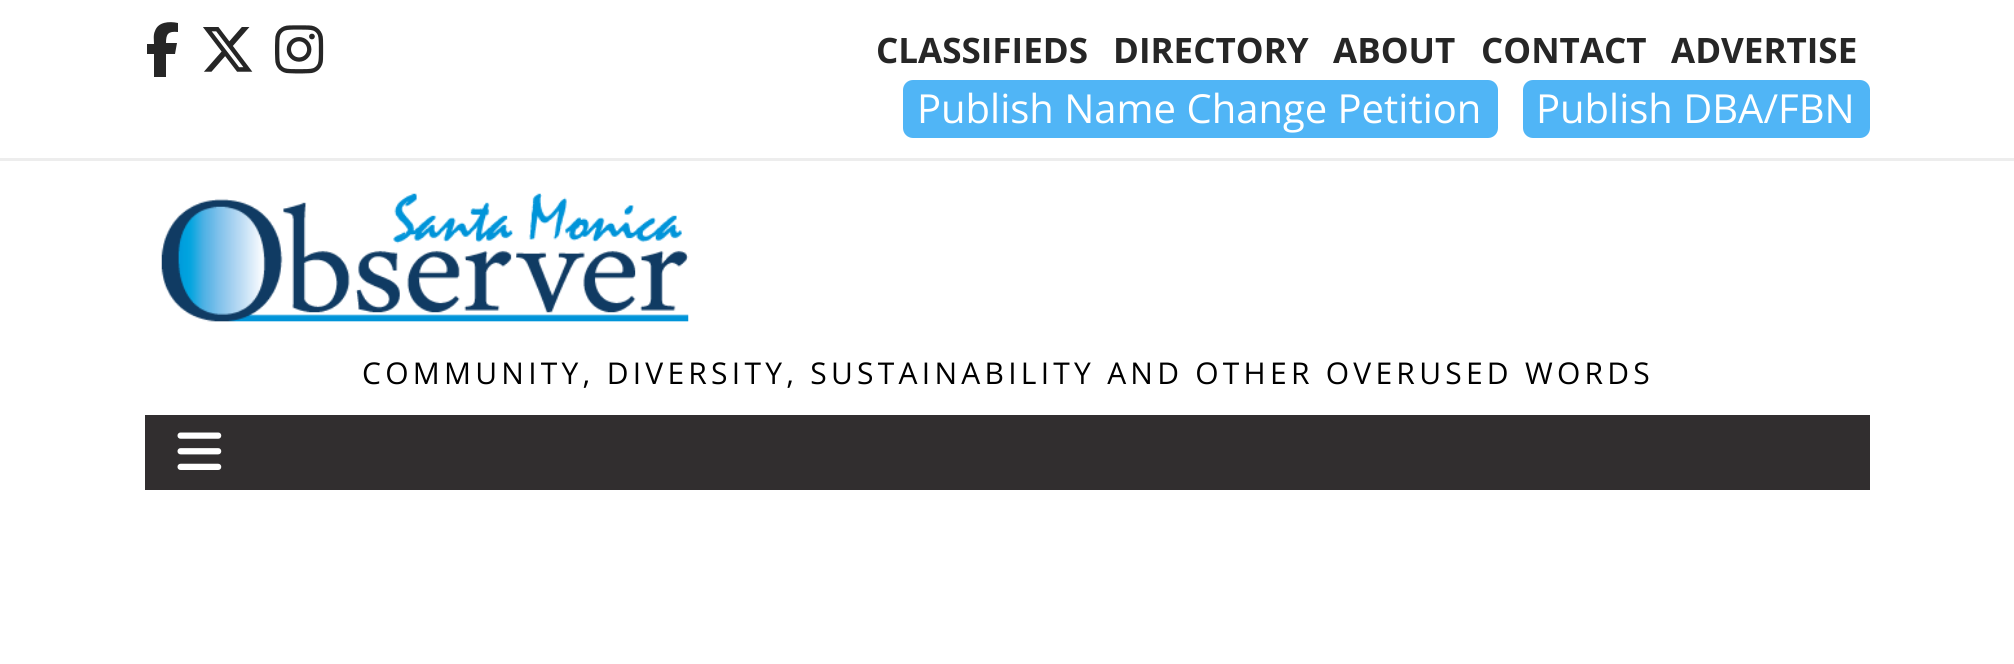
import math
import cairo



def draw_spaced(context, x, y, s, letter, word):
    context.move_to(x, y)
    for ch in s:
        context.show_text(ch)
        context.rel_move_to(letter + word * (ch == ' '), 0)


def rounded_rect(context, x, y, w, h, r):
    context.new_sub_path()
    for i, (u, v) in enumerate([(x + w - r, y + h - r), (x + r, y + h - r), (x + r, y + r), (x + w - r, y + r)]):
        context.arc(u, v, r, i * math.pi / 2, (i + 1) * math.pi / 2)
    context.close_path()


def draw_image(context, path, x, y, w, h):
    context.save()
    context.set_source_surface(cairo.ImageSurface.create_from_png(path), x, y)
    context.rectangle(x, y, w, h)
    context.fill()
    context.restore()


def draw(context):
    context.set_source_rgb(1, 1, 1)
    context.paint()
    context.set_source_rgb(237 / 255, 237 / 255, 237 / 255)
    context.rectangle(0, 158, 2014, 3)
    context.fill()
    context.set_source_rgb(38 / 255, 38 / 255, 38 / 255)
    context.new_path()
    context.move_to(154, 54)
    context.line_to(154, 77)
    context.line_to(154, 54)
    context.line_to(154, 77)
    context.line_to(166, 77)
    context.line_to(166, 54)
    context.line_to(175, 54)
    context.line_to(177, 43)
    context.line_to(166, 43)
    context.curve_to(166, 34, 168, 31, 178, 32)
    context.line_to(178, 23)
    context.curve_to(169, 21, 158, 22, 155, 31)
    context.curve_to(153, 35, 154, 40, 154, 44)
    context.line_to(147, 44)
    context.line_to(147, 54)
    context.close_path()
    context.fill()
    draw_image(context, "images/1.png", 203, 27, 50, 45)
    draw_image(context, "images/2.png", 275, 25, 49, 49)
    context.set_source_rgb(80 / 255, 181 / 255, 246 / 255)
    rounded_rect(context, 905.5, 82.5, 590, 53, 7.5)
    context.fill_preserve()
    context.set_line_width(5)
    context.stroke()
    rounded_rect(context, 1525.5, 82.5, 342, 53, 7.5)
    context.fill_preserve()
    context.stroke()
    draw_image(context, "images/3.png", 161, 193, 528, 129)
    context.set_source_rgb(49 / 255, 46 / 255, 47 / 255)
    context.rectangle(145, 415, 1725, 75)
    context.fill()
    draw_image(context, "images/4.png", 177, 432, 45, 38)
    context.select_font_face("Open Sans", cairo.FontSlant.NORMAL, cairo.FontWeight.BOLD)
    context.set_font_size(35)
    context.set_source_rgb(38 / 255, 38 / 255, 38 / 255)
    context.move_to(876, 63)
    context.show_text("CLASSIFIEDS")
    context.move_to(1113, 63)
    context.show_text("DIRECTORY")
    context.move_to(1333, 63)
    context.show_text("ABOUT")
    context.move_to(1481, 63)
    context.show_text("CONTACT")
    context.move_to(1671, 63)
    context.show_text("ADVERTISE")
    context.select_font_face("Open Sans")
    context.set_font_size(40)
    context.set_source_rgb(1, 1, 1)
    context.move_to(917, 123)
    context.show_text("Publish Name Change Petition")
    context.move_to(1536, 123)
    context.show_text("Publish DBA/FBN")
    context.set_font_size(30)
    context.set_source_rgb(0, 0, 0)
    draw_spaced(context, 362, 384, "COMMUNITY, DIVERSITY, SUSTAINABILITY AND OTHER OVERUSED WORDS", 4.25, 0)


surface = cairo.ImageSurface(cairo.Format.RGB24, 2014, 664)
context = cairo.Context(surface)
options = cairo.FontOptions()
options.set_hint_metrics(cairo.HintMetrics.OFF)
options.set_hint_style(cairo.HintStyle.NONE)
context.set_font_options(options)
context.set_miter_limit(4)
draw(context)
surface.write_to_png("out.png")
